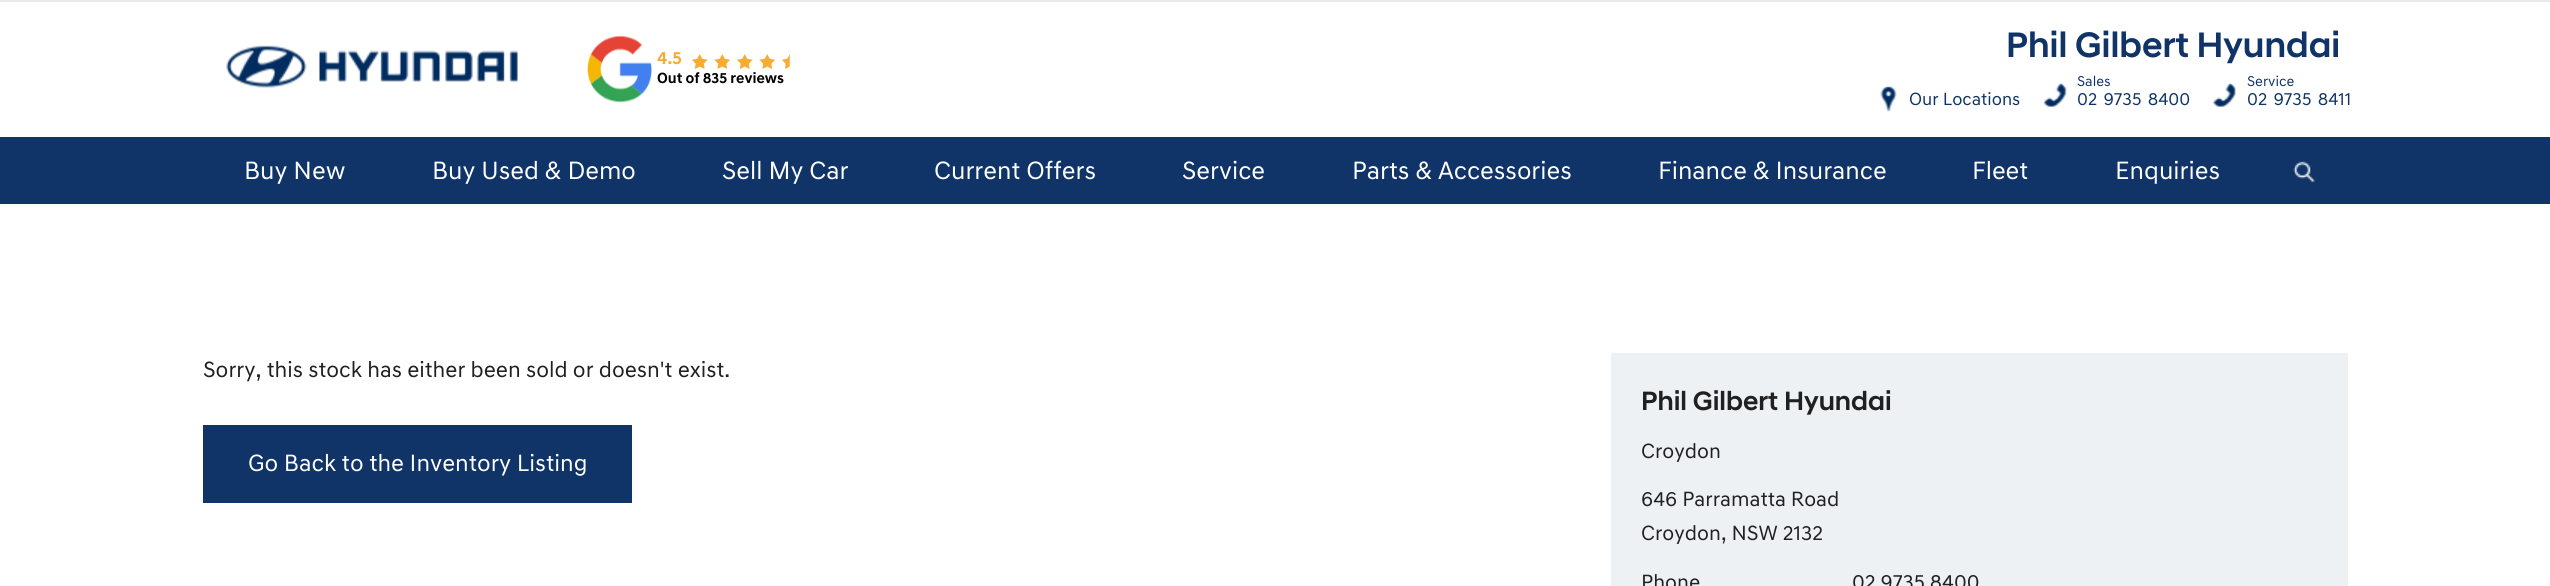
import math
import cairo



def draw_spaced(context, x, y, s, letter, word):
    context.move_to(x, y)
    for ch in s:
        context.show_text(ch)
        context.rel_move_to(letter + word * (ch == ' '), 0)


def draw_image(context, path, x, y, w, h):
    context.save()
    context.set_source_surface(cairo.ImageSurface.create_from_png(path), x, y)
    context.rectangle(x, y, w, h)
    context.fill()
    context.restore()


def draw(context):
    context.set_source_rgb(1, 1, 1)
    context.paint()
    context.set_source_rgb(233 / 255, 233 / 255, 233 / 255)
    context.rectangle(0, 0, 2550, 2)
    context.fill()
    draw_image(context, "images/1.png", 226, 45, 292, 43)
    draw_image(context, "images/2.png", 587, 35, 65, 68)
    draw_image(context, "images/3.png", 692, 54, 16, 15)
    draw_image(context, "images/4.png", 714, 54, 16, 15)
    draw_image(context, "images/3.png", 737, 54, 16, 15)
    draw_image(context, "images/4.png", 759, 54, 16, 15)
    draw_image(context, "images/5.png", 782, 54, 8, 15)
    draw_image(context, "images/6.png", 1880, 86, 17, 26)
    draw_image(context, "images/7.png", 2043, 83, 24, 24)
    draw_image(context, "images/8.png", 2213, 83, 23, 24)
    context.set_source_rgb(16 / 255, 52 / 255, 104 / 255)
    context.rectangle(0, 137, 2550, 67)
    context.fill()
    draw_image(context, "images/9.png", 2293, 161, 22, 22)
    context.rectangle(203, 425, 429, 78)
    context.fill()
    context.set_source_rgb(238 / 255, 241 / 255, 244 / 255)
    context.rectangle(1611, 353, 737, 233)
    context.fill()
    context.select_font_face("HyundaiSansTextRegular", cairo.FontSlant.NORMAL, cairo.FontWeight.BOLD)
    context.set_font_size(18)
    context.set_source_rgb(246 / 255, 172 / 255, 50 / 255)
    context.move_to(657, 64)
    context.show_text("4.5")
    context.set_font_size(15)
    context.set_source_rgb(0, 0, 0)
    context.move_to(657, 83)
    context.show_text("Out of 835 reviews")
    context.select_font_face("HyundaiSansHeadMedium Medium")
    context.set_font_size(36)
    context.set_source_rgb(16 / 255, 52 / 255, 104 / 255)
    context.move_to(2006, 57)
    context.show_text("Phil Gilbert Hyundai")
    context.select_font_face("HyundaiSansTextRegular")
    context.set_font_size(18)
    context.move_to(1909, 105)
    context.show_text("Our Locations")
    context.set_font_size(14.5)
    context.move_to(2077, 86)
    context.show_text("Sales")
    context.set_font_size(18)
    draw_spaced(context, 2077, 105, "02 9735 8400", 0, 2)
    context.set_font_size(14.5)
    context.move_to(2247, 86)
    context.show_text("Service")
    context.set_font_size(18)
    draw_spaced(context, 2247, 105, "02 9735 8411", 0, 2)
    context.set_font_size(25.5)
    context.set_source_rgb(1, 1, 1)
    context.move_to(244, 179)
    context.show_text("Buy New")
    context.move_to(432, 179)
    context.show_text("Buy Used & Demo")
    context.move_to(722, 179)
    context.show_text("Sell My Car")
    context.move_to(934, 179)
    context.show_text("Current Offers")
    context.move_to(1182, 179)
    context.show_text("Service")
    context.move_to(1352, 179)
    context.show_text("Parts & Accessories")
    context.move_to(1658, 179)
    context.show_text("Finance & Insurance")
    context.move_to(1972, 179)
    context.show_text("Fleet")
    context.move_to(2115, 179)
    context.show_text("Enquiries")
    context.set_font_size(22.5)
    context.set_source_rgb(32 / 255, 32 / 255, 32 / 255)
    context.move_to(203, 377)
    context.show_text("Sorry, this stock has either been sold or doesn't exist.")
    context.set_font_size(24)
    context.set_source_rgb(1, 1, 1)
    context.move_to(248, 471)
    context.show_text("Go Back to the Inventory Listing")
    context.select_font_face("HyundaiSansHeadMedium Medium")
    context.set_font_size(27)
    context.set_source_rgb(32 / 255, 32 / 255, 32 / 255)
    context.move_to(1641, 410)
    context.show_text("Phil Gilbert Hyundai")
    context.select_font_face("HyundaiSansTextRegular")
    context.set_font_size(21)
    context.move_to(1641, 458)
    context.show_text("Croydon")
    context.move_to(1641, 506)
    context.show_text("646 Parramatta Road")
    context.move_to(1641, 540)
    context.show_text("Croydon, NSW 2132")
    context.move_to(1641, 589)
    context.show_text("Phone")
    context.move_to(1852, 589)
    context.show_text("02 9735 8400")


surface = cairo.ImageSurface(cairo.Format.RGB24, 2550, 586)
context = cairo.Context(surface)
options = cairo.FontOptions()
options.set_hint_metrics(cairo.HintMetrics.OFF)
options.set_hint_style(cairo.HintStyle.NONE)
context.set_font_options(options)
context.set_miter_limit(4)
draw(context)
surface.write_to_png("out.png")
